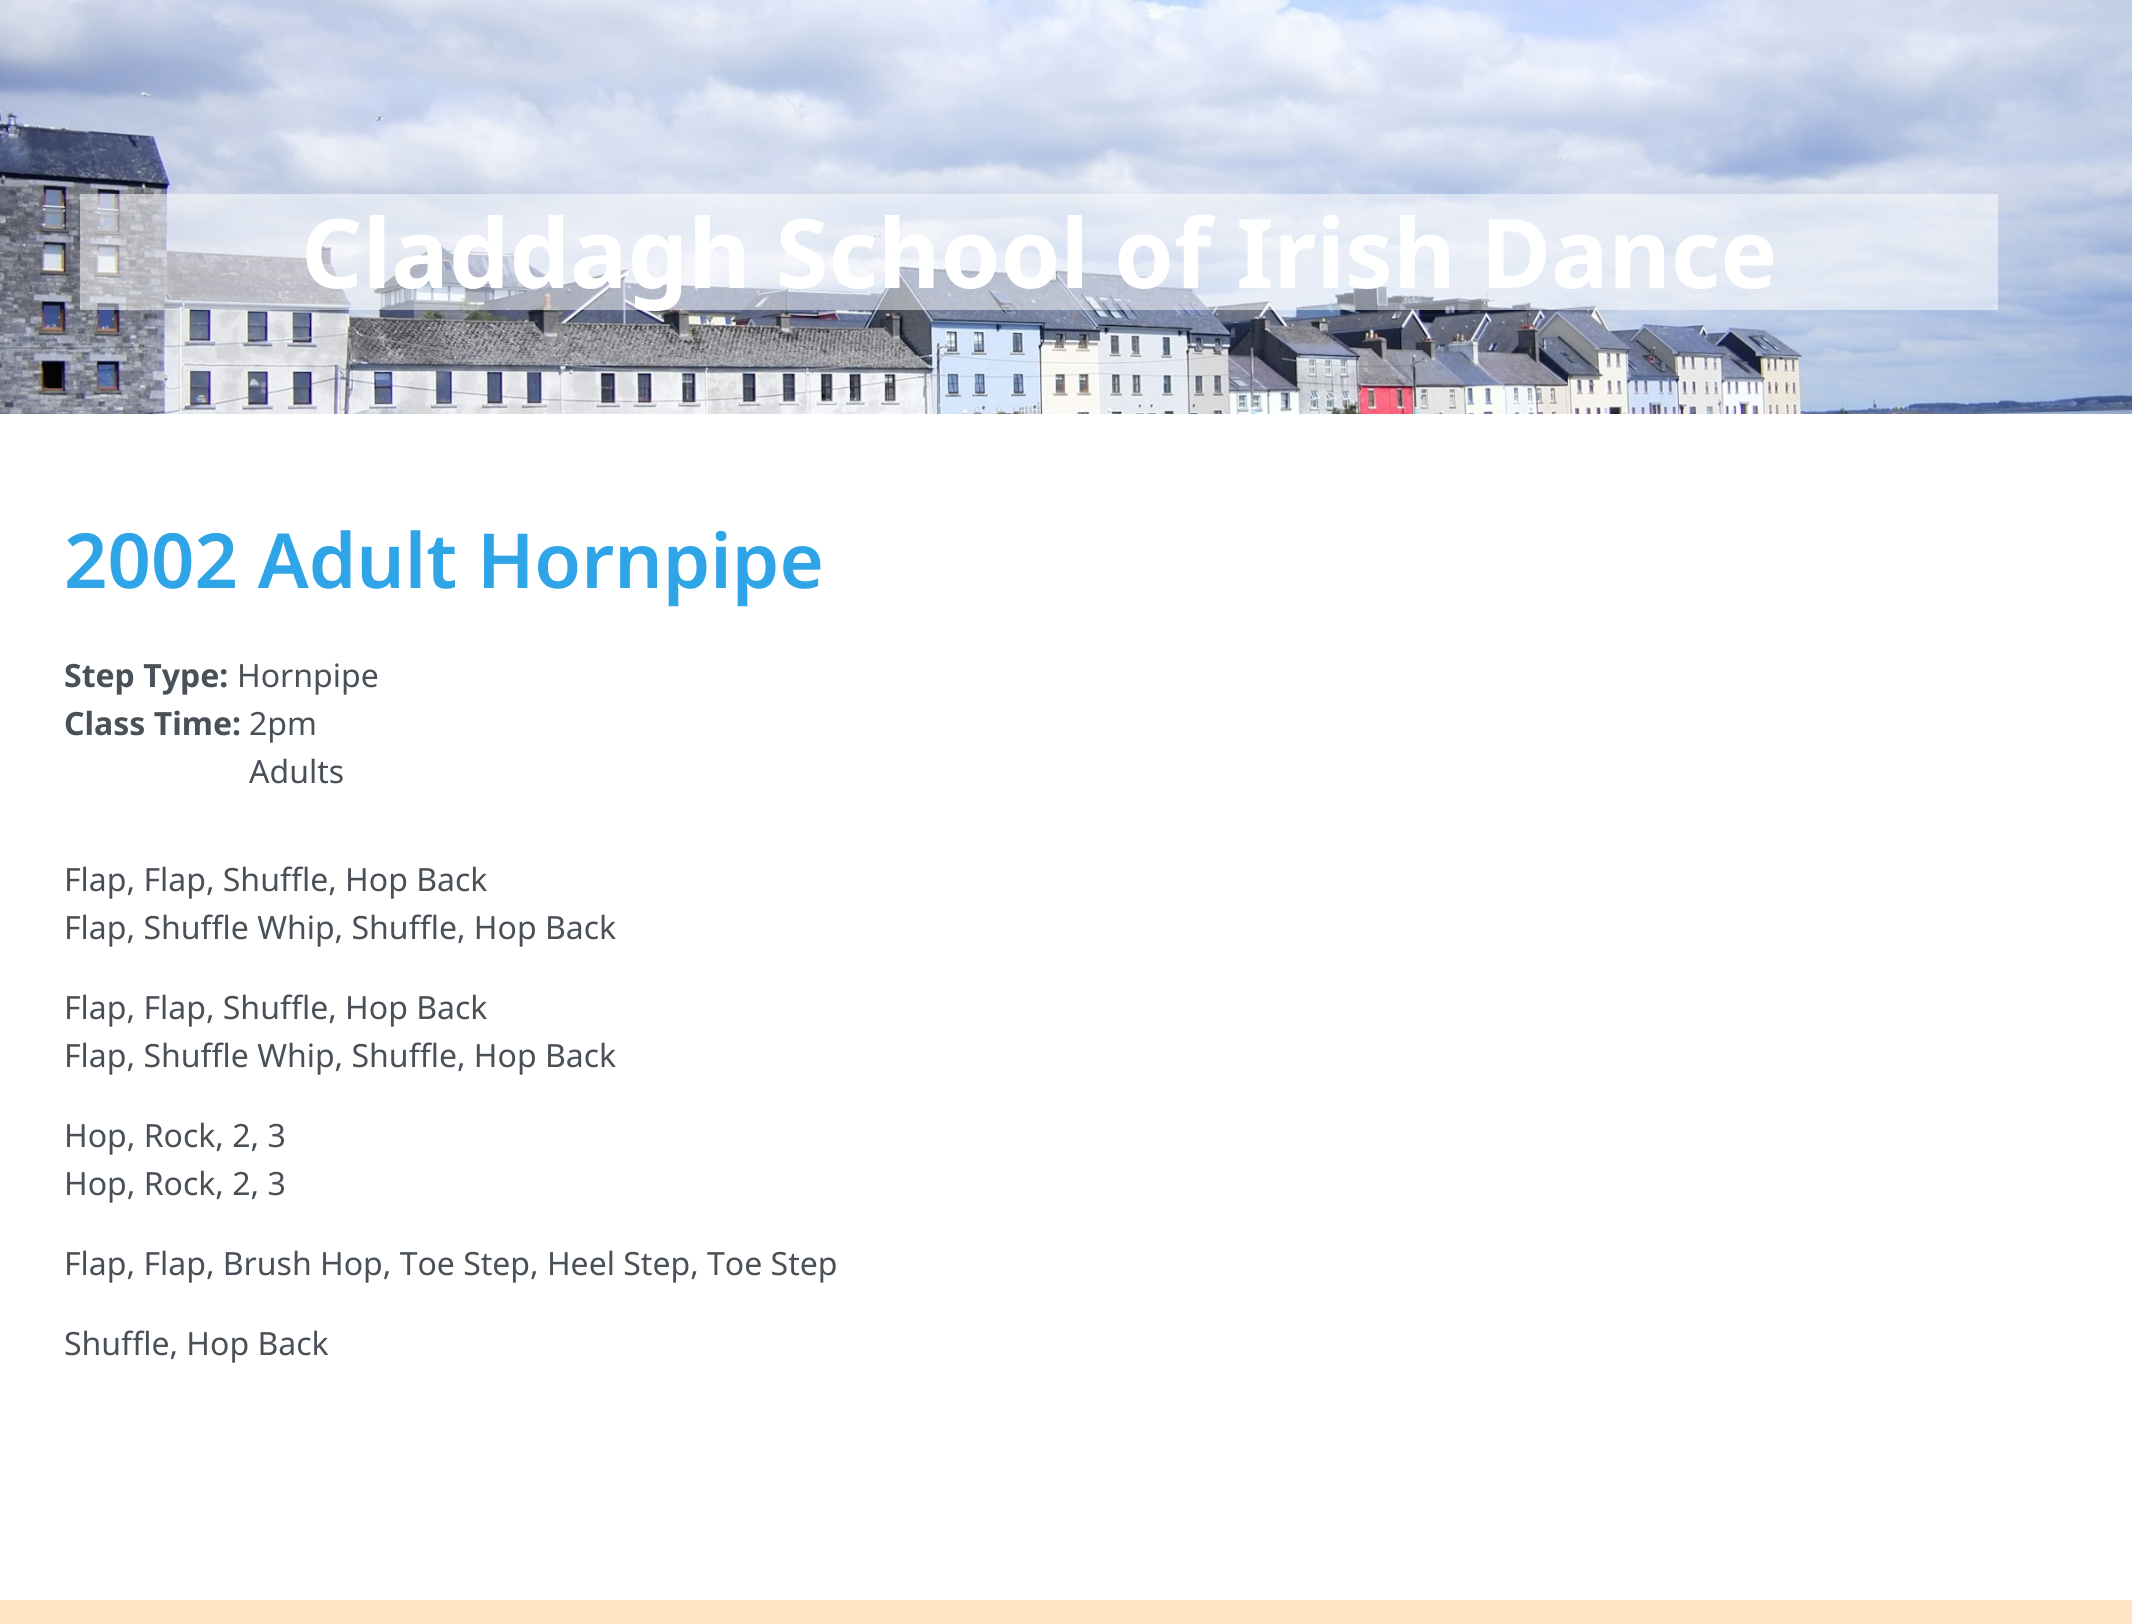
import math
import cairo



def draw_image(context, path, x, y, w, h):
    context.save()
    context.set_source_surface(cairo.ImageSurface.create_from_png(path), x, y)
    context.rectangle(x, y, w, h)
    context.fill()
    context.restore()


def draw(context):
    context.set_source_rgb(1, 1, 1)
    context.paint()
    draw_image(context, "images/1.png", 0, 0, 2132, 414)
    context.set_source_rgba(1, 1, 1, 0.5)
    context.rectangle(80, 194, 1918, 116)
    context.fill()
    context.set_source_rgb(1, 228 / 255, 196 / 255)
    context.rectangle(0, 1600, 2132, 24)
    context.fill()
    context.select_font_face("Noto Sans", cairo.FontSlant.NORMAL, cairo.FontWeight.BOLD)
    context.set_font_size(96)
    context.set_source_rgb(1, 1, 1)
    context.move_to(301, 288)
    context.show_text("Claddagh School of Irish Dance")
    context.select_font_face("Noto Sans SemiBold")
    context.set_font_size(76)
    context.set_source_rgb(47 / 255, 164 / 255, 231 / 255)
    context.move_to(64, 588)
    context.show_text("2002 Adult Hornpipe")
    context.select_font_face("Noto Sans", cairo.FontSlant.NORMAL, cairo.FontWeight.BOLD)
    context.set_font_size(32)
    context.set_source_rgb(73 / 255, 80 / 255, 87 / 255)
    context.move_to(64, 687)
    context.show_text("Step Type:")
    context.select_font_face("Noto Sans")
    context.move_to(237, 687)
    context.show_text("Hornpipe")
    context.select_font_face("Noto Sans", cairo.FontSlant.NORMAL, cairo.FontWeight.BOLD)
    context.move_to(64, 735)
    context.show_text("Class Time:")
    context.select_font_face("Noto Sans")
    context.move_to(249, 735)
    context.show_text("2pm")
    context.move_to(249, 783)
    context.show_text("Adults")
    context.move_to(64, 891)
    context.show_text("Flap, Flap, Shuffle, Hop Back")
    context.move_to(64, 939)
    context.show_text("Flap, Shuffle Whip, Shuffle, Hop Back")
    context.move_to(64, 1019)
    context.show_text("Flap, Flap, Shuffle, Hop Back")
    context.move_to(64, 1067)
    context.show_text("Flap, Shuffle Whip, Shuffle, Hop Back")
    context.move_to(64, 1147)
    context.show_text("Hop, Rock, 2, 3")
    context.move_to(64, 1195)
    context.show_text("Hop, Rock, 2, 3")
    context.move_to(64, 1275)
    context.show_text("Flap, Flap, Brush Hop, Toe Step, Heel Step, Toe Step")
    context.move_to(64, 1355)
    context.show_text("Shuffle, Hop Back")


surface = cairo.ImageSurface(cairo.Format.RGB24, 2132, 1624)
context = cairo.Context(surface)
options = cairo.FontOptions()
options.set_hint_metrics(cairo.HintMetrics.OFF)
options.set_hint_style(cairo.HintStyle.NONE)
context.set_font_options(options)
context.set_miter_limit(4)
draw(context)
surface.write_to_png("out.png")
